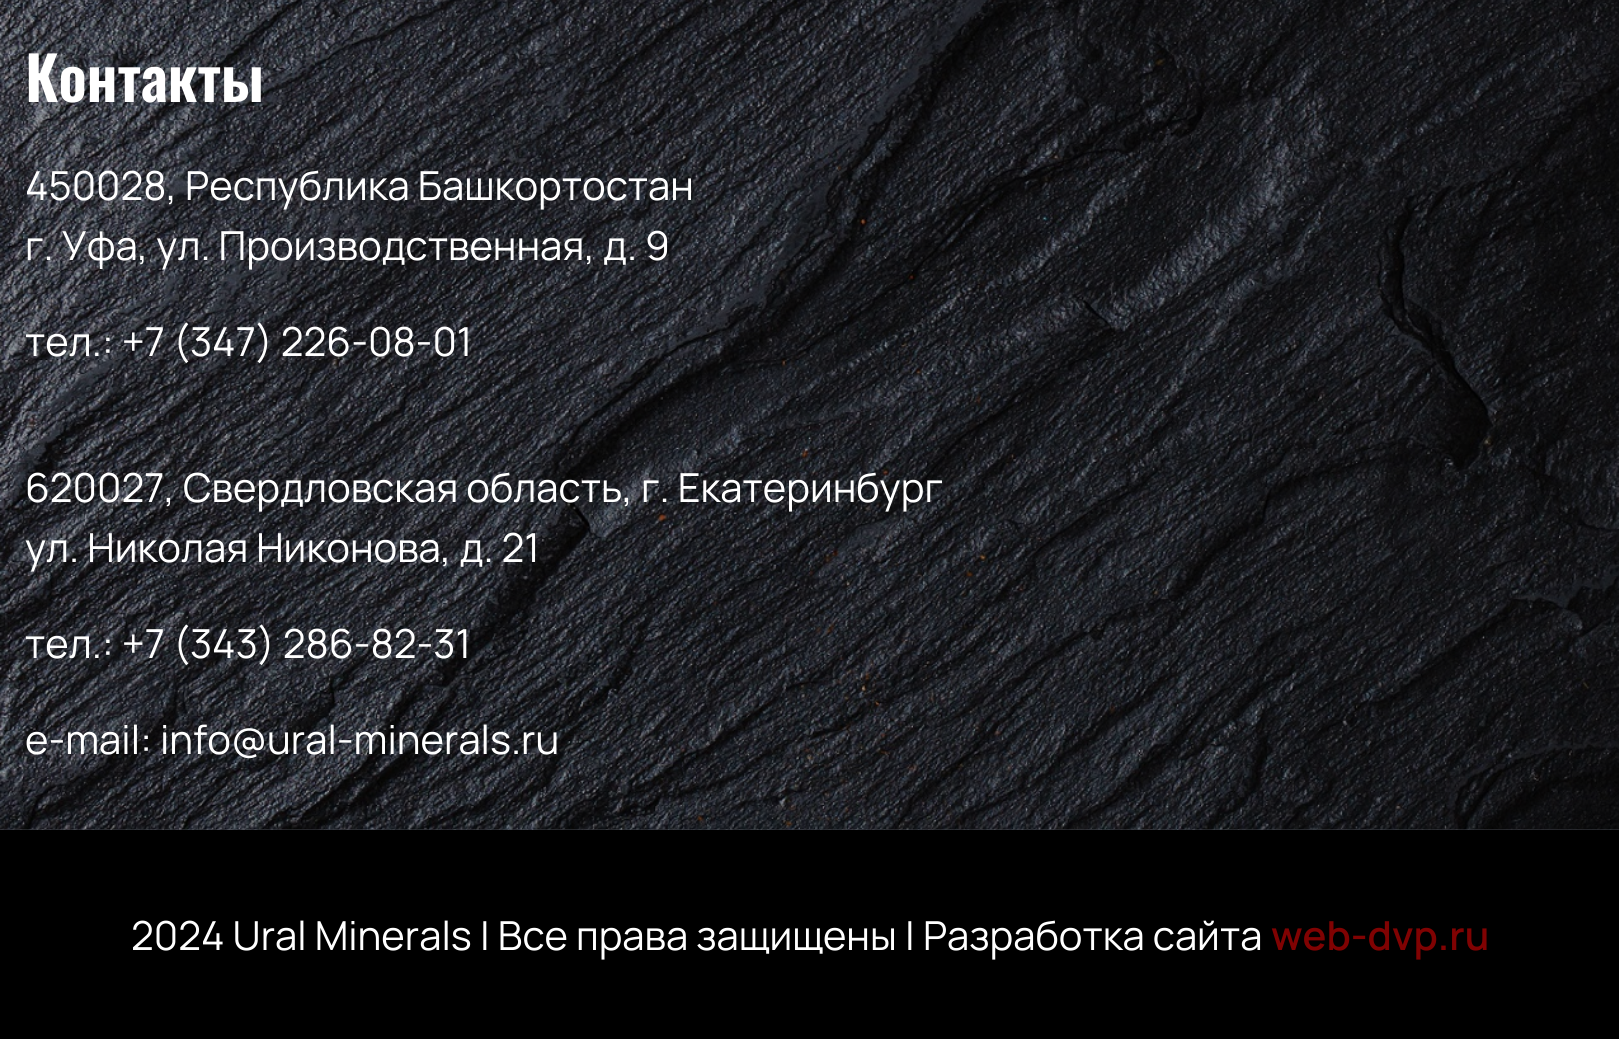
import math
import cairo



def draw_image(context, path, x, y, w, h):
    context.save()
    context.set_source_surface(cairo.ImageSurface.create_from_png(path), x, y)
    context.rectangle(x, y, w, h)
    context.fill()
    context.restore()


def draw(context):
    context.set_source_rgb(62 / 255, 65 / 255, 73 / 255)
    context.paint()
    draw_image(context, "images/1.png", 0, 0, 1619, 830)
    context.set_source_rgb(0, 0, 0)
    context.rectangle(0, 830, 1619, 209)
    context.fill()
    context.select_font_face("Oswald SemiBold")
    context.set_font_size(60)
    context.set_source_rgb(1, 1, 1)
    context.move_to(25, 102)
    context.show_text("Контакты")
    context.select_font_face("Manrope")
    context.set_font_size(40)
    context.move_to(25, 200)
    context.show_text("450028, Республика Башкортостан")
    context.move_to(25, 260)
    context.show_text("г. Уфа, ул. Производственная, д. 9")
    context.move_to(25, 356)
    context.show_text("тел.: +7 (347) 226-08-01")
    context.move_to(25, 502)
    context.show_text("620027, Свердловская область, г. Екатеринбург")
    context.move_to(25, 562)
    context.show_text("ул. Николая Никонова, д. 21")
    context.move_to(25, 658)
    context.show_text("тел.: +7 (343) 286-82-31")
    context.move_to(25, 754)
    context.show_text("e-mail: info@ural-minerals.ru")
    context.move_to(131, 950)
    context.show_text("2024 Ural Minerals | Все права защищены | Разработка сайта")
    context.select_font_face("Manrope SemiBold")
    context.set_source_rgb(128 / 255, 2 / 255, 2 / 255)
    context.move_to(1271, 950)
    context.show_text("web-dvp.ru")


surface = cairo.ImageSurface(cairo.Format.RGB24, 1619, 1039)
context = cairo.Context(surface)
options = cairo.FontOptions()
options.set_hint_metrics(cairo.HintMetrics.OFF)
options.set_hint_style(cairo.HintStyle.NONE)
context.set_font_options(options)
context.set_miter_limit(4)
draw(context)
surface.write_to_png("out.png")
